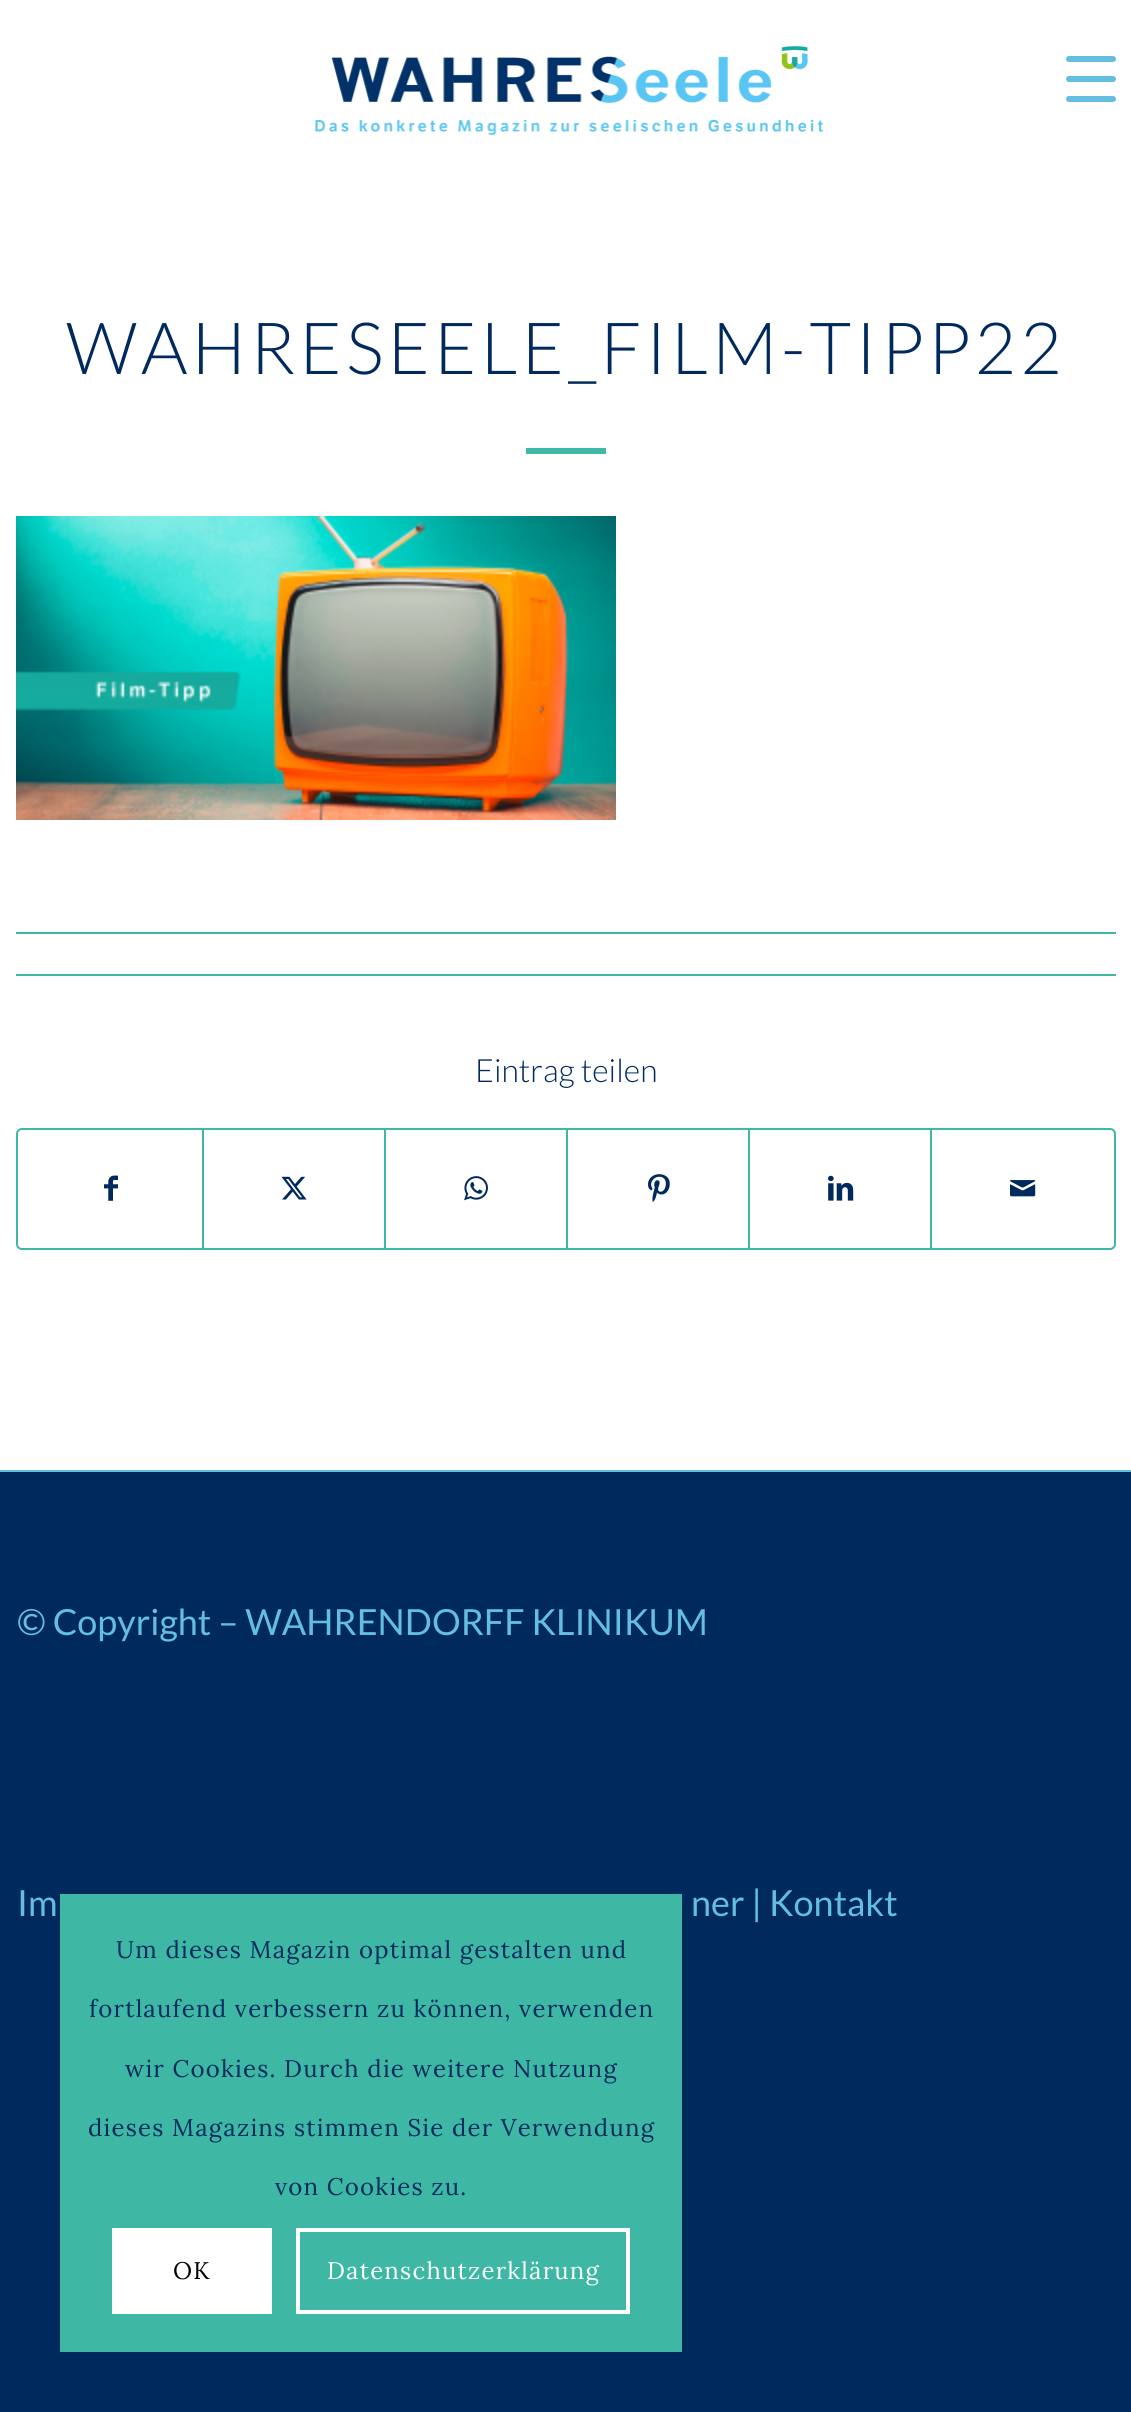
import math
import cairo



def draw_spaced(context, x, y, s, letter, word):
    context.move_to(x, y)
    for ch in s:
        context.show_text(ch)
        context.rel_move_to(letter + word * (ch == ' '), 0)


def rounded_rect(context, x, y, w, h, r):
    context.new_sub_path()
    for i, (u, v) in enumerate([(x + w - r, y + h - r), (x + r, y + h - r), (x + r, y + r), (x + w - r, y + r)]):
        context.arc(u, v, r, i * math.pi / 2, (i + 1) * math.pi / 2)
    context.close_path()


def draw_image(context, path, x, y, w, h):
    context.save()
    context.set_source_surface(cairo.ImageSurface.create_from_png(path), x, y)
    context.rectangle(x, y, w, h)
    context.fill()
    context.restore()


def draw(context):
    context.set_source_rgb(0, 41 / 255, 94 / 255)
    context.paint()
    context.set_source_rgb(1, 1, 1)
    context.rectangle(0, 0, 1131, 1470)
    context.fill()
    draw_image(context, "images/1.png", 315, 46, 508, 89)
    context.set_source_rgb(100 / 255, 190 / 255, 226 / 255)
    rounded_rect(context, 1066, 76, 50, 6, 3)
    context.fill()
    rounded_rect(context, 1066, 56, 50, 6, 3)
    context.fill()
    rounded_rect(context, 1066, 96, 50, 6, 3)
    context.fill()
    context.set_source_rgb(62 / 255, 184 / 255, 164 / 255)
    context.rectangle(526, 448, 80, 6)
    context.fill()
    draw_image(context, "images/2.png", 16, 516, 600, 304)
    context.rectangle(16, 932, 1100, 2)
    context.fill()
    context.rectangle(16, 974, 1100, 2)
    context.fill()
    rounded_rect(context, 17, 1129, 1098, 120, 5)
    context.stroke()
    draw_image(context, "images/3.png", 104, 1175, 14, 26)
    context.rectangle(202, 1130, 2, 118)
    context.fill()
    draw_image(context, "images/4.png", 281, 1176, 26, 24)
    context.rectangle(384, 1130, 2, 118)
    context.fill()
    draw_image(context, "images/5.png", 464, 1176, 24, 25)
    context.rectangle(566, 1130, 2, 118)
    context.fill()
    draw_image(context, "images/6.png", 648, 1174, 22, 29)
    context.rectangle(748, 1130, 2, 118)
    context.fill()
    draw_image(context, "images/7.png", 828, 1175, 26, 26)
    context.rectangle(930, 1130, 2, 118)
    context.fill()
    draw_image(context, "images/8.png", 1010, 1180, 26, 17)
    context.set_source_rgb(100 / 255, 190 / 255, 226 / 255)
    context.rectangle(0, 1470, 1131, 2)
    context.fill()
    context.set_source_rgb(62 / 255, 184 / 255, 164 / 255)
    context.rectangle(60, 1894, 622, 458)
    context.fill()
    context.set_source_rgb(1, 1, 1)
    context.rectangle(112, 2228, 160, 86)
    context.fill()
    context.rectangle(298, 2230, 330, 82)
    context.set_line_width(4)
    context.stroke()
    context.select_font_face("Lato Light")
    context.set_font_size(72)
    context.set_source_rgb(0, 41 / 255, 94 / 255)
    draw_spaced(context, 66, 374, "WAHRESEELE_FILM-TIPP22", 4, 0)
    context.set_font_size(32)
    context.move_to(475, 1082)
    context.show_text("Eintrag teilen")
    context.select_font_face("Lato")
    context.set_font_size(36)
    context.set_source_rgb(100 / 255, 190 / 255, 226 / 255)
    context.move_to(17, 1635)
    context.show_text("© Copyright – WAHRENDORFF KLINIKUM")
    context.move_to(17, 1916)
    context.show_text("Im")
    context.move_to(691, 1916)
    context.show_text("ner | Kontakt")
    context.select_font_face("Lora")
    context.set_font_size(24)
    context.set_source_rgb(0, 41 / 255, 94 / 255)
    draw_spaced(context, 116, 1958, "Um dieses Magazin optimal gestalten und", 1.2, 0)
    draw_spaced(context, 89, 2017, "fortlaufend verbessern zu können, verwenden", 1.2, 0)
    draw_spaced(context, 125, 2077, "wir Cookies. Durch die weitere Nutzung", 1.2, 0)
    draw_spaced(context, 88, 2136, "dieses Magazins stimmen Sie der Verwendung", 1.2, 0)
    draw_spaced(context, 275, 2195, "von Cookies zu.", 1.2, 0)
    context.set_source_rgb(0, 0, 0)
    draw_spaced(context, 173, 2279, "OK", 1.2, 0)
    context.set_source_rgb(1, 1, 1)
    draw_spaced(context, 327, 2279, "Datenschutzerklärung", 1.2, 0)


surface = cairo.ImageSurface(cairo.Format.RGB24, 1131, 2412)
context = cairo.Context(surface)
options = cairo.FontOptions()
options.set_hint_metrics(cairo.HintMetrics.OFF)
options.set_hint_style(cairo.HintStyle.NONE)
context.set_font_options(options)
context.set_miter_limit(4)
draw(context)
surface.write_to_png("out.png")
